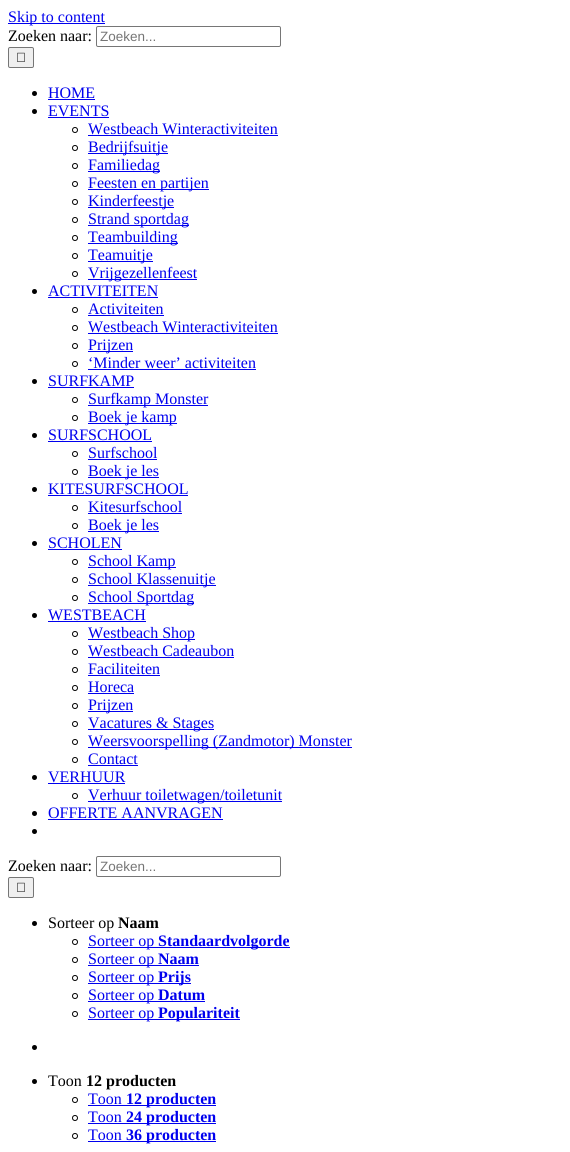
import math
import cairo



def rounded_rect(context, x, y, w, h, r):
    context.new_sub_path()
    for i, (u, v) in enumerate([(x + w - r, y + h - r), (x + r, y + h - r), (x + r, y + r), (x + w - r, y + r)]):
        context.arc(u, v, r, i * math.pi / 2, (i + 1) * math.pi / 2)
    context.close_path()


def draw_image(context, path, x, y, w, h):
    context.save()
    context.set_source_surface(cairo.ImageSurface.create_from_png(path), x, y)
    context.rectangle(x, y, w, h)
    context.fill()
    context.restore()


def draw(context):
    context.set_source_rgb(1, 1, 1)
    context.paint()
    context.set_source_rgb(0, 0, 238 / 255)
    context.rectangle(8, 23, 97, 1)
    context.fill()
    rounded_rect(context, 96.5, 26.5, 184, 20, 1.5)
    context.set_source_rgb(118 / 255, 118 / 255, 118 / 255)
    context.set_line_width(1)
    context.stroke()
    context.set_source_rgb(239 / 255, 239 / 255, 239 / 255)
    rounded_rect(context, 8.5, 47.5, 25, 20, 1.5)
    context.fill_preserve()
    context.set_source_rgb(118 / 255, 118 / 255, 118 / 255)
    context.stroke()
    draw_image(context, "images/1.png", 17, 52, 8, 10)
    context.set_source_rgb(0, 0, 0)
    context.arc(34.5, 93.5, 2.5, 0, 2 * math.pi)
    context.fill()
    context.set_source_rgb(0, 0, 238 / 255)
    context.rectangle(48, 99, 47, 1)
    context.fill()
    context.set_source_rgb(0, 0, 0)
    context.arc(34.5, 111.5, 2.5, 0, 2 * math.pi)
    context.fill()
    context.set_source_rgb(0, 0, 238 / 255)
    context.rectangle(48, 117, 61, 1)
    context.fill()
    context.arc(75, 130, 2.5, 0, 2 * math.pi)
    context.set_source_rgb(0, 0, 0)
    context.stroke()
    context.set_source_rgb(0, 0, 238 / 255)
    context.rectangle(88, 135, 190, 1)
    context.fill()
    context.arc(75, 148, 2.5, 0, 2 * math.pi)
    context.set_source_rgb(0, 0, 0)
    context.stroke()
    context.set_source_rgb(0, 0, 238 / 255)
    context.rectangle(88, 153, 80, 1)
    context.fill()
    context.arc(75, 166, 2.5, 0, 2 * math.pi)
    context.set_source_rgb(0, 0, 0)
    context.stroke()
    context.set_source_rgb(0, 0, 238 / 255)
    context.rectangle(88, 171, 72, 1)
    context.fill()
    context.arc(75, 184, 2.5, 0, 2 * math.pi)
    context.set_source_rgb(0, 0, 0)
    context.stroke()
    context.set_source_rgb(0, 0, 238 / 255)
    context.rectangle(88, 189, 121, 1)
    context.fill()
    context.arc(75, 202, 2.5, 0, 2 * math.pi)
    context.set_source_rgb(0, 0, 0)
    context.stroke()
    context.set_source_rgb(0, 0, 238 / 255)
    context.rectangle(88, 207, 86, 1)
    context.fill()
    context.arc(75, 220, 2.5, 0, 2 * math.pi)
    context.set_source_rgb(0, 0, 0)
    context.stroke()
    context.set_source_rgb(0, 0, 238 / 255)
    context.rectangle(88, 225, 101, 1)
    context.fill()
    context.arc(75, 238, 2.5, 0, 2 * math.pi)
    context.set_source_rgb(0, 0, 0)
    context.stroke()
    context.set_source_rgb(0, 0, 238 / 255)
    context.rectangle(88, 243, 90, 1)
    context.fill()
    context.arc(75, 256, 2.5, 0, 2 * math.pi)
    context.set_source_rgb(0, 0, 0)
    context.stroke()
    context.set_source_rgb(0, 0, 238 / 255)
    context.rectangle(88, 261, 65, 1)
    context.fill()
    context.arc(75, 274, 2.5, 0, 2 * math.pi)
    context.set_source_rgb(0, 0, 0)
    context.stroke()
    context.set_source_rgb(0, 0, 238 / 255)
    context.rectangle(88, 279, 109, 1)
    context.fill()
    context.set_source_rgb(0, 0, 0)
    context.arc(34.5, 291.5, 2.5, 0, 2 * math.pi)
    context.fill()
    context.set_source_rgb(0, 0, 238 / 255)
    context.rectangle(48, 297, 110, 1)
    context.fill()
    context.arc(75, 310, 2.5, 0, 2 * math.pi)
    context.set_source_rgb(0, 0, 0)
    context.stroke()
    context.set_source_rgb(0, 0, 238 / 255)
    context.rectangle(88, 315, 76, 1)
    context.fill()
    context.arc(75, 328, 2.5, 0, 2 * math.pi)
    context.set_source_rgb(0, 0, 0)
    context.stroke()
    context.set_source_rgb(0, 0, 238 / 255)
    context.rectangle(88, 333, 190, 1)
    context.fill()
    context.arc(75, 346, 2.5, 0, 2 * math.pi)
    context.set_source_rgb(0, 0, 0)
    context.stroke()
    context.set_source_rgb(0, 0, 238 / 255)
    context.rectangle(88, 351, 45, 1)
    context.fill()
    context.arc(75, 364, 2.5, 0, 2 * math.pi)
    context.set_source_rgb(0, 0, 0)
    context.stroke()
    context.set_source_rgb(0, 0, 238 / 255)
    context.rectangle(88, 369, 168, 1)
    context.fill()
    context.set_source_rgb(0, 0, 0)
    context.arc(34.5, 381.5, 2.5, 0, 2 * math.pi)
    context.fill()
    context.set_source_rgb(0, 0, 238 / 255)
    context.rectangle(48, 387, 86, 1)
    context.fill()
    context.arc(75, 400, 2.5, 0, 2 * math.pi)
    context.set_source_rgb(0, 0, 0)
    context.stroke()
    context.set_source_rgb(0, 0, 238 / 255)
    context.rectangle(88, 405, 120, 1)
    context.fill()
    context.arc(75, 418, 2.5, 0, 2 * math.pi)
    context.set_source_rgb(0, 0, 0)
    context.stroke()
    context.set_source_rgb(0, 0, 238 / 255)
    context.rectangle(88, 423, 89, 1)
    context.fill()
    context.set_source_rgb(0, 0, 0)
    context.arc(34.5, 435.5, 2.5, 0, 2 * math.pi)
    context.fill()
    context.set_source_rgb(0, 0, 238 / 255)
    context.rectangle(48, 441, 104, 1)
    context.fill()
    context.arc(75, 454, 2.5, 0, 2 * math.pi)
    context.set_source_rgb(0, 0, 0)
    context.stroke()
    context.set_source_rgb(0, 0, 238 / 255)
    context.rectangle(88, 459, 69, 1)
    context.fill()
    context.arc(75, 472, 2.5, 0, 2 * math.pi)
    context.set_source_rgb(0, 0, 0)
    context.stroke()
    context.set_source_rgb(0, 0, 238 / 255)
    context.rectangle(88, 477, 71, 1)
    context.fill()
    context.set_source_rgb(0, 0, 0)
    context.arc(34.5, 489.5, 2.5, 0, 2 * math.pi)
    context.fill()
    context.set_source_rgb(0, 0, 238 / 255)
    context.rectangle(48, 495, 140, 1)
    context.fill()
    context.arc(75, 508, 2.5, 0, 2 * math.pi)
    context.set_source_rgb(0, 0, 0)
    context.stroke()
    context.set_source_rgb(0, 0, 238 / 255)
    context.rectangle(88, 513, 94, 1)
    context.fill()
    context.arc(75, 526, 2.5, 0, 2 * math.pi)
    context.set_source_rgb(0, 0, 0)
    context.stroke()
    context.set_source_rgb(0, 0, 238 / 255)
    context.rectangle(88, 531, 71, 1)
    context.fill()
    context.set_source_rgb(0, 0, 0)
    context.arc(34.5, 543.5, 2.5, 0, 2 * math.pi)
    context.fill()
    context.set_source_rgb(0, 0, 238 / 255)
    context.rectangle(48, 549, 74, 1)
    context.fill()
    context.arc(75, 562, 2.5, 0, 2 * math.pi)
    context.set_source_rgb(0, 0, 0)
    context.stroke()
    context.set_source_rgb(0, 0, 238 / 255)
    context.rectangle(88, 567, 88, 1)
    context.fill()
    context.arc(75, 580, 2.5, 0, 2 * math.pi)
    context.set_source_rgb(0, 0, 0)
    context.stroke()
    context.set_source_rgb(0, 0, 238 / 255)
    context.rectangle(88, 585, 128, 1)
    context.fill()
    context.arc(75, 598, 2.5, 0, 2 * math.pi)
    context.set_source_rgb(0, 0, 0)
    context.stroke()
    context.set_source_rgb(0, 0, 238 / 255)
    context.rectangle(88, 603, 106, 1)
    context.fill()
    context.set_source_rgb(0, 0, 0)
    context.arc(34.5, 615.5, 2.5, 0, 2 * math.pi)
    context.fill()
    context.set_source_rgb(0, 0, 238 / 255)
    context.rectangle(48, 621, 98, 1)
    context.fill()
    context.arc(75, 634, 2.5, 0, 2 * math.pi)
    context.set_source_rgb(0, 0, 0)
    context.stroke()
    context.set_source_rgb(0, 0, 238 / 255)
    context.rectangle(88, 639, 107, 1)
    context.fill()
    context.arc(75, 652, 2.5, 0, 2 * math.pi)
    context.set_source_rgb(0, 0, 0)
    context.stroke()
    context.set_source_rgb(0, 0, 238 / 255)
    context.rectangle(88, 657, 146, 1)
    context.fill()
    context.arc(75, 670, 2.5, 0, 2 * math.pi)
    context.set_source_rgb(0, 0, 0)
    context.stroke()
    context.set_source_rgb(0, 0, 238 / 255)
    context.rectangle(88, 675, 72, 1)
    context.fill()
    context.arc(75, 688, 2.5, 0, 2 * math.pi)
    context.set_source_rgb(0, 0, 0)
    context.stroke()
    context.set_source_rgb(0, 0, 238 / 255)
    context.rectangle(88, 693, 46, 1)
    context.fill()
    context.arc(75, 706, 2.5, 0, 2 * math.pi)
    context.set_source_rgb(0, 0, 0)
    context.stroke()
    context.set_source_rgb(0, 0, 238 / 255)
    context.rectangle(88, 711, 45, 1)
    context.fill()
    context.arc(75, 724, 2.5, 0, 2 * math.pi)
    context.set_source_rgb(0, 0, 0)
    context.stroke()
    context.set_source_rgb(0, 0, 238 / 255)
    context.rectangle(88, 729, 126, 1)
    context.fill()
    context.arc(75, 742, 2.5, 0, 2 * math.pi)
    context.set_source_rgb(0, 0, 0)
    context.stroke()
    context.set_source_rgb(0, 0, 238 / 255)
    context.rectangle(88, 747, 264, 1)
    context.fill()
    context.arc(75, 760, 2.5, 0, 2 * math.pi)
    context.set_source_rgb(0, 0, 0)
    context.stroke()
    context.set_source_rgb(0, 0, 238 / 255)
    context.rectangle(88, 765, 50, 1)
    context.fill()
    context.set_source_rgb(0, 0, 0)
    context.arc(34.5, 777.5, 2.5, 0, 2 * math.pi)
    context.fill()
    context.set_source_rgb(0, 0, 238 / 255)
    context.rectangle(48, 783, 77, 1)
    context.fill()
    context.arc(75, 796, 2.5, 0, 2 * math.pi)
    context.set_source_rgb(0, 0, 0)
    context.stroke()
    context.set_source_rgb(0, 0, 238 / 255)
    context.rectangle(88, 801, 194, 1)
    context.fill()
    context.set_source_rgb(0, 0, 0)
    context.arc(34.5, 813.5, 2.5, 0, 2 * math.pi)
    context.fill()
    context.set_source_rgb(0, 0, 238 / 255)
    context.rectangle(48, 819, 175, 1)
    context.fill()
    context.set_source_rgb(0, 0, 0)
    context.arc(34.5, 831.5, 2.5, 0, 2 * math.pi)
    context.fill()
    rounded_rect(context, 96.5, 856.5, 184, 20, 1.5)
    context.set_source_rgb(118 / 255, 118 / 255, 118 / 255)
    context.stroke()
    context.set_source_rgb(239 / 255, 239 / 255, 239 / 255)
    rounded_rect(context, 8.5, 877.5, 25, 20, 1.5)
    context.fill_preserve()
    context.set_source_rgb(118 / 255, 118 / 255, 118 / 255)
    context.stroke()
    draw_image(context, "images/1.png", 17, 882, 8, 10)
    context.set_source_rgb(0, 0, 0)
    context.arc(34.5, 923.5, 2.5, 0, 2 * math.pi)
    context.fill()
    context.arc(75, 942, 2.5, 0, 2 * math.pi)
    context.stroke()
    context.set_source_rgb(0, 0, 238 / 255)
    context.rectangle(88, 947, 202, 1)
    context.fill()
    context.arc(75, 960, 2.5, 0, 2 * math.pi)
    context.set_source_rgb(0, 0, 0)
    context.stroke()
    context.set_source_rgb(0, 0, 238 / 255)
    context.rectangle(88, 965, 111, 1)
    context.fill()
    context.arc(75, 978, 2.5, 0, 2 * math.pi)
    context.set_source_rgb(0, 0, 0)
    context.stroke()
    context.set_source_rgb(0, 0, 238 / 255)
    context.rectangle(88, 983, 103, 1)
    context.fill()
    context.arc(75, 996, 2.5, 0, 2 * math.pi)
    context.set_source_rgb(0, 0, 0)
    context.stroke()
    context.set_source_rgb(0, 0, 238 / 255)
    context.rectangle(88, 1001, 117, 1)
    context.fill()
    context.arc(75, 1014, 2.5, 0, 2 * math.pi)
    context.set_source_rgb(0, 0, 0)
    context.stroke()
    context.set_source_rgb(0, 0, 238 / 255)
    context.rectangle(88, 1019, 152, 1)
    context.fill()
    context.set_source_rgb(0, 0, 0)
    context.arc(34.5, 1047.5, 2.5, 0, 2 * math.pi)
    context.fill()
    context.arc(34.5, 1081.5, 2.5, 0, 2 * math.pi)
    context.fill()
    context.arc(75, 1100, 2.5, 0, 2 * math.pi)
    context.stroke()
    context.set_source_rgb(0, 0, 238 / 255)
    context.rectangle(88, 1105, 128, 1)
    context.fill()
    context.arc(75, 1118, 2.5, 0, 2 * math.pi)
    context.set_source_rgb(0, 0, 0)
    context.stroke()
    context.set_source_rgb(0, 0, 238 / 255)
    context.rectangle(88, 1123, 128, 1)
    context.fill()
    context.arc(75, 1136, 2.5, 0, 2 * math.pi)
    context.set_source_rgb(0, 0, 0)
    context.stroke()
    context.set_source_rgb(0, 0, 238 / 255)
    context.rectangle(88, 1141, 128, 1)
    context.fill()
    context.select_font_face("Liberation Serif")
    context.set_font_size(16)
    context.move_to(8, 22)
    context.show_text("Skip to content")
    context.set_source_rgb(0, 0, 0)
    context.move_to(8, 41)
    context.show_text("Zoeken naar:")
    context.select_font_face("Liberation Sans")
    context.set_font_size(13.5)
    context.set_source_rgb(117 / 255, 117 / 255, 117 / 255)
    context.move_to(100, 41)
    context.show_text("Zoeken...")
    context.select_font_face("Liberation Serif")
    context.set_font_size(16)
    context.set_source_rgb(0, 0, 238 / 255)
    context.move_to(48, 98)
    context.show_text("HOME")
    context.move_to(48, 116)
    context.show_text("EVENTS")
    context.move_to(88, 134)
    context.show_text("Westbeach Winteractiviteiten")
    context.move_to(88, 152)
    context.show_text("Bedrijfsuitje")
    context.move_to(88, 170)
    context.show_text("Familiedag")
    context.move_to(88, 188)
    context.show_text("Feesten en partijen")
    context.move_to(88, 206)
    context.show_text("Kinderfeestje")
    context.move_to(88, 224)
    context.show_text("Strand sportdag")
    context.move_to(88, 242)
    context.show_text("Teambuilding")
    context.move_to(88, 260)
    context.show_text("Teamuitje")
    context.move_to(88, 278)
    context.show_text("Vrijgezellenfeest")
    context.move_to(48, 296)
    context.show_text("ACTIVITEITEN")
    context.move_to(88, 314)
    context.show_text("Activiteiten")
    context.move_to(88, 332)
    context.show_text("Westbeach Winteractiviteiten")
    context.move_to(88, 350)
    context.show_text("Prijzen")
    context.move_to(88, 368)
    context.show_text("‘Minder weer’ activiteiten")
    context.move_to(48, 386)
    context.show_text("SURFKAMP")
    context.move_to(88, 404)
    context.show_text("Surfkamp Monster")
    context.move_to(88, 422)
    context.show_text("Boek je kamp")
    context.move_to(48, 440)
    context.show_text("SURFSCHOOL")
    context.move_to(88, 458)
    context.show_text("Surfschool")
    context.move_to(88, 476)
    context.show_text("Boek je les")
    context.move_to(48, 494)
    context.show_text("KITESURFSCHOOL")
    context.move_to(88, 512)
    context.show_text("Kitesurfschool")
    context.move_to(88, 530)
    context.show_text("Boek je les")
    context.move_to(48, 548)
    context.show_text("SCHOLEN")
    context.move_to(88, 566)
    context.show_text("School Kamp")
    context.move_to(88, 584)
    context.show_text("School Klassenuitje")
    context.move_to(88, 602)
    context.show_text("School Sportdag")
    context.move_to(48, 620)
    context.show_text("WESTBEACH")
    context.move_to(88, 638)
    context.show_text("Westbeach Shop")
    context.move_to(88, 656)
    context.show_text("Westbeach Cadeaubon")
    context.move_to(88, 674)
    context.show_text("Faciliteiten")
    context.move_to(88, 692)
    context.show_text("Horeca")
    context.move_to(88, 710)
    context.show_text("Prijzen")
    context.move_to(88, 728)
    context.show_text("Vacatures & Stages")
    context.move_to(88, 746)
    context.show_text("Weersvoorspelling (Zandmotor) Monster")
    context.move_to(88, 764)
    context.show_text("Contact")
    context.move_to(48, 782)
    context.show_text("VERHUUR")
    context.move_to(88, 800)
    context.show_text("Verhuur toiletwagen/toiletunit")
    context.move_to(48, 818)
    context.show_text("OFFERTE AANVRAGEN")
    context.set_source_rgb(0, 0, 0)
    context.move_to(8, 871)
    context.show_text("Zoeken naar:")
    context.select_font_face("Liberation Sans")
    context.set_font_size(13.5)
    context.set_source_rgb(117 / 255, 117 / 255, 117 / 255)
    context.move_to(100, 871)
    context.show_text("Zoeken...")
    context.select_font_face("Liberation Serif")
    context.set_font_size(16)
    context.set_source_rgb(0, 0, 0)
    context.move_to(48, 928)
    context.show_text("Sorteer op")
    context.select_font_face("Liberation Serif", cairo.FontSlant.NORMAL, cairo.FontWeight.BOLD)
    context.move_to(118, 928)
    context.show_text("Naam")
    context.select_font_face("Liberation Serif")
    context.set_source_rgb(0, 0, 238 / 255)
    context.move_to(88, 946)
    context.show_text("Sorteer op")
    context.select_font_face("Liberation Serif", cairo.FontSlant.NORMAL, cairo.FontWeight.BOLD)
    context.move_to(158, 946)
    context.show_text("Standaardvolgorde")
    context.select_font_face("Liberation Serif")
    context.move_to(88, 964)
    context.show_text("Sorteer op")
    context.select_font_face("Liberation Serif", cairo.FontSlant.NORMAL, cairo.FontWeight.BOLD)
    context.move_to(158, 964)
    context.show_text("Naam")
    context.select_font_face("Liberation Serif")
    context.move_to(88, 982)
    context.show_text("Sorteer op")
    context.select_font_face("Liberation Serif", cairo.FontSlant.NORMAL, cairo.FontWeight.BOLD)
    context.move_to(158, 982)
    context.show_text("Prijs")
    context.select_font_face("Liberation Serif")
    context.move_to(88, 1000)
    context.show_text("Sorteer op")
    context.select_font_face("Liberation Serif", cairo.FontSlant.NORMAL, cairo.FontWeight.BOLD)
    context.move_to(158, 1000)
    context.show_text("Datum")
    context.select_font_face("Liberation Serif")
    context.move_to(88, 1018)
    context.show_text("Sorteer op")
    context.select_font_face("Liberation Serif", cairo.FontSlant.NORMAL, cairo.FontWeight.BOLD)
    context.move_to(158, 1018)
    context.show_text("Populariteit")
    context.select_font_face("Liberation Serif")
    context.set_source_rgb(0, 0, 0)
    context.move_to(48, 1086)
    context.show_text("Toon")
    context.select_font_face("Liberation Serif", cairo.FontSlant.NORMAL, cairo.FontWeight.BOLD)
    context.move_to(86, 1086)
    context.show_text("12 producten")
    context.select_font_face("Liberation Serif")
    context.set_source_rgb(0, 0, 238 / 255)
    context.move_to(88, 1104)
    context.show_text("Toon")
    context.select_font_face("Liberation Serif", cairo.FontSlant.NORMAL, cairo.FontWeight.BOLD)
    context.move_to(126, 1104)
    context.show_text("12 producten")
    context.select_font_face("Liberation Serif")
    context.move_to(88, 1122)
    context.show_text("Toon")
    context.select_font_face("Liberation Serif", cairo.FontSlant.NORMAL, cairo.FontWeight.BOLD)
    context.move_to(126, 1122)
    context.show_text("24 producten")
    context.select_font_face("Liberation Serif")
    context.move_to(88, 1140)
    context.show_text("Toon")
    context.select_font_face("Liberation Serif", cairo.FontSlant.NORMAL, cairo.FontWeight.BOLD)
    context.move_to(126, 1140)
    context.show_text("36 producten")


surface = cairo.ImageSurface(cairo.Format.RGB24, 570, 1152)
context = cairo.Context(surface)
options = cairo.FontOptions()
options.set_hint_metrics(cairo.HintMetrics.OFF)
options.set_hint_style(cairo.HintStyle.NONE)
context.set_font_options(options)
context.set_miter_limit(4)
draw(context)
surface.write_to_png("out.png")
